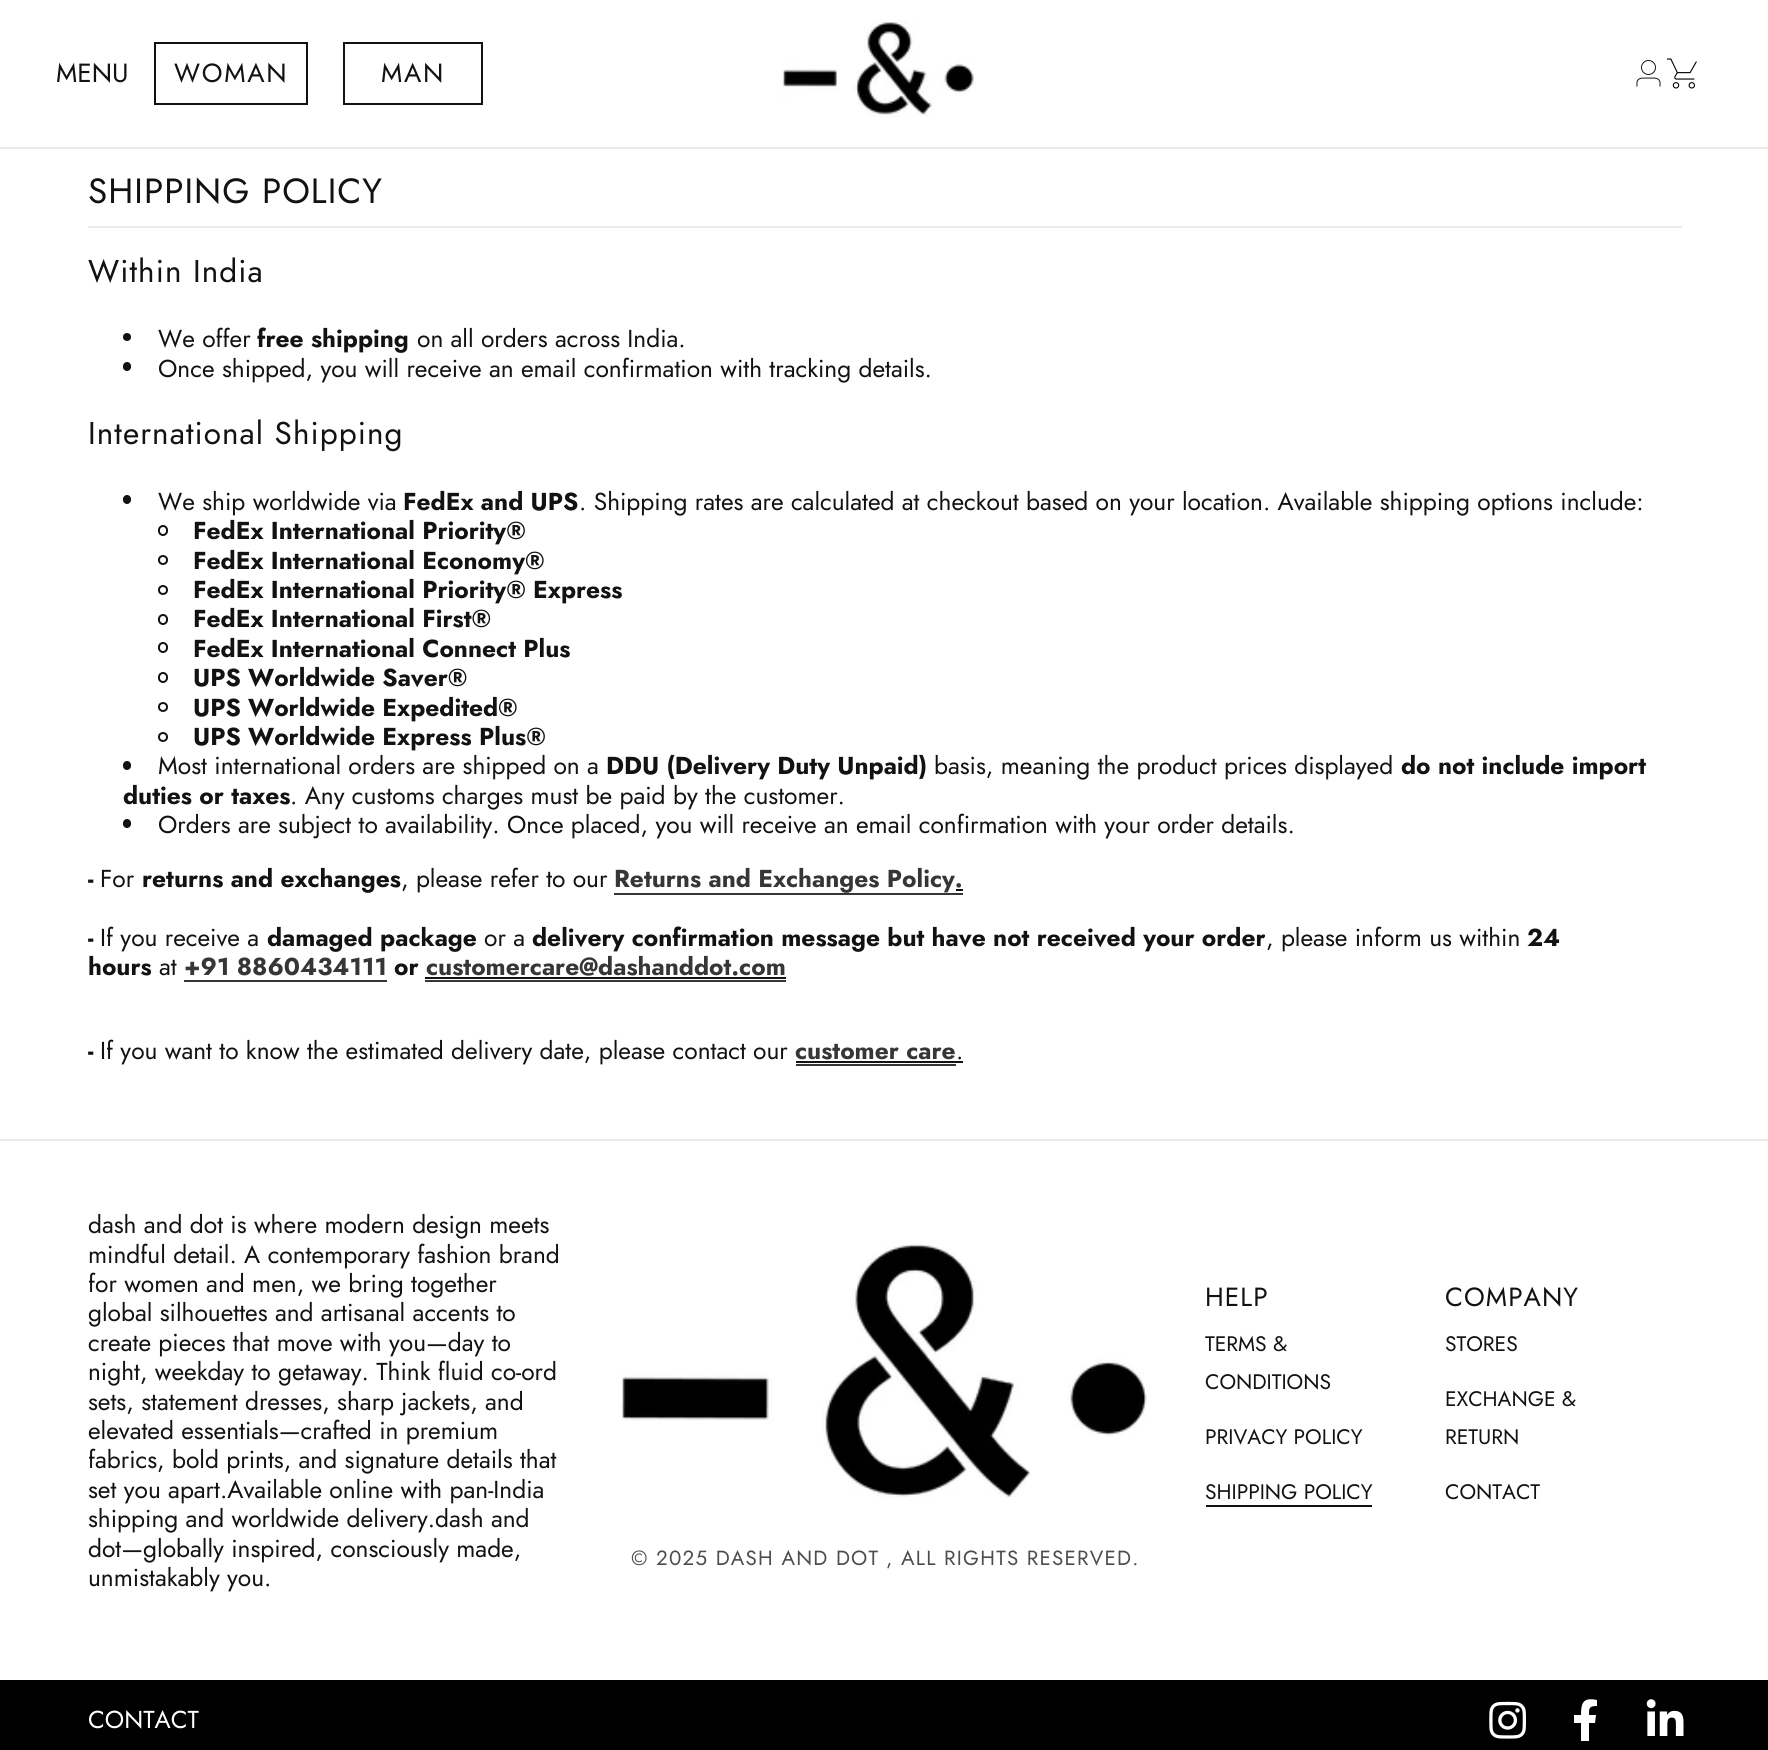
import math
import cairo



def draw_spaced(context, x, y, s, letter, word):
    context.move_to(x, y)
    for ch in s:
        context.show_text(ch)
        context.rel_move_to(letter + word * (ch == ' '), 0)


def rounded_rect(context, x, y, w, h, r):
    context.new_sub_path()
    for i, (u, v) in enumerate([(x + w - r, y + h - r), (x + r, y + h - r), (x + r, y + r), (x + w - r, y + r)]):
        context.arc(u, v, r, i * math.pi / 2, (i + 1) * math.pi / 2)
    context.close_path()


def draw_image(context, path, x, y, w, h):
    context.save()
    context.set_source_surface(cairo.ImageSurface.create_from_png(path), x, y)
    context.rectangle(x, y, w, h)
    context.fill()
    context.restore()


def draw(context):
    context.set_source_rgb(1, 1, 1)
    context.paint()
    context.set_source_rgb(236 / 255, 236 / 255, 236 / 255)
    context.rectangle(0, 147, 1768, 2)
    context.fill()
    context.rectangle(155, 43, 152, 61)
    context.set_source_rgb(18 / 255, 18 / 255, 18 / 255)
    context.stroke()
    context.rectangle(344, 43, 138, 61)
    context.stroke()
    draw_image(context, "images/1.png", 781, 21, 195, 96)
    draw_image(context, "images/2.png", 1636, 60, 25, 27)
    draw_image(context, "images/3.png", 1667, 58, 30, 31)
    context.set_source_rgb(236 / 255, 236 / 255, 236 / 255)
    context.rectangle(88, 226, 1594, 2)
    context.fill()
    context.set_source_rgb(18 / 255, 18 / 255, 18 / 255)
    context.arc(127, 337, 4, 0, 2 * math.pi)
    context.fill()
    rounded_rect(context, 123, 362, 8, 9, 4)
    context.fill()
    rounded_rect(context, 123, 495, 8, 9, 4)
    context.fill()
    rounded_rect(context, 159, 526, 8, 9, 4)
    context.stroke()
    context.arc(163, 560, 4, 0, 2 * math.pi)
    context.stroke()
    context.arc(163, 590, 4, 0, 2 * math.pi)
    context.stroke()
    rounded_rect(context, 159, 615, 8, 9, 4)
    context.stroke()
    rounded_rect(context, 159, 643, 8, 9, 4)
    context.stroke()
    rounded_rect(context, 159, 673, 8, 9, 4)
    context.stroke()
    context.arc(163, 707, 4, 0, 2 * math.pi)
    context.stroke()
    context.arc(163, 737, 4, 0, 2 * math.pi)
    context.stroke()
    rounded_rect(context, 123, 761, 8, 9, 4)
    context.fill()
    rounded_rect(context, 123, 819, 8, 9, 4)
    context.fill()
    context.set_source_rgb(54 / 255, 54 / 255, 54 / 255)
    context.rectangle(614, 893, 349, 2)
    context.fill()
    context.rectangle(184, 980, 203, 2)
    context.fill()
    context.rectangle(425, 980, 361, 2)
    context.fill()
    context.set_source_rgb(18 / 255, 18 / 255, 18 / 255)
    context.rectangle(425, 977, 361, 2)
    context.fill()
    context.set_source_rgb(54 / 255, 54 / 255, 54 / 255)
    context.rectangle(796, 1064, 160, 2)
    context.fill()
    context.set_source_rgb(18 / 255, 18 / 255, 18 / 255)
    context.rectangle(796, 1061, 167, 2)
    context.fill()
    context.set_source_rgb(236 / 255, 236 / 255, 236 / 255)
    context.rectangle(0, 1139, 1768, 2)
    context.fill()
    context.set_source_rgb(18 / 255, 18 / 255, 18 / 255)
    context.rectangle(1206, 1505, 166, 2)
    context.fill()
    draw_image(context, "images/4.png", 621, 1244, 526, 254)
    context.set_source_rgb(0, 0, 0)
    context.rectangle(0, 1680, 1768, 70)
    context.fill()
    draw_image(context, "images/5.png", 1489, 1701, 37, 38)
    context.set_source_rgb(1, 1, 1)
    context.new_path()
    context.move_to(1595, 1723)
    context.line_to(1596, 1715)
    context.line_to(1589, 1715)
    context.curve_to(1589, 1708, 1589, 1706, 1597, 1706)
    context.line_to(1597, 1700)
    context.curve_to(1583, 1697, 1581, 1703, 1581, 1715)
    context.line_to(1574, 1715)
    context.line_to(1574, 1723)
    context.line_to(1581, 1723)
    context.line_to(1581, 1741)
    context.line_to(1589, 1741)
    context.line_to(1589, 1723)
    context.close_path()
    context.fill()
    draw_image(context, "images/6.png", 1646, 1699, 38, 37)
    context.select_font_face("Jost")
    context.set_font_size(26.25)
    context.set_source_rgb(18 / 255, 18 / 255, 18 / 255)
    context.move_to(56, 82)
    context.show_text("MENU")
    draw_spaced(context, 174, 82, "WOMAN", 1.75, 0)
    draw_spaced(context, 381, 82, "MAN", 1.75, 0)
    context.set_font_size(35)
    draw_spaced(context, 88, 203, "SHIPPING POLICY", 1.05, 0)
    context.set_font_size(31.5)
    draw_spaced(context, 88, 282, "Within India", 1.05, 0)
    context.set_font_size(24.5)
    context.move_to(158, 347)
    context.show_text("We offer")
    context.select_font_face("Jost", cairo.FontSlant.NORMAL, cairo.FontWeight.BOLD)
    context.move_to(257, 347)
    context.show_text("free shipping")
    context.select_font_face("Jost")
    context.move_to(417, 347)
    context.show_text("on all orders across India.")
    context.move_to(158, 377)
    context.show_text("Once shipped, you will receive an email confirmation with tracking details.")
    context.set_font_size(31.5)
    draw_spaced(context, 88, 444, "International Shipping", 1.05, 0)
    context.set_font_size(24.5)
    context.move_to(158, 510)
    context.show_text("We ship worldwide via")
    context.select_font_face("Jost", cairo.FontSlant.NORMAL, cairo.FontWeight.BOLD)
    context.move_to(403, 510)
    context.show_text("FedEx and UPS")
    context.select_font_face("Jost")
    context.move_to(579, 510)
    context.show_text(". Shipping rates are calculated at checkout based on your location. Available shipping options include:")
    context.select_font_face("Jost", cairo.FontSlant.NORMAL, cairo.FontWeight.BOLD)
    context.move_to(193, 539)
    context.show_text("FedEx International Priority®")
    context.move_to(193, 569)
    context.show_text("FedEx International Economy®")
    context.move_to(193, 598)
    context.show_text("FedEx International Priority® Express")
    context.move_to(193, 627)
    context.show_text("FedEx International First®")
    context.move_to(193, 657)
    context.show_text("FedEx International Connect Plus")
    context.move_to(193, 686)
    context.show_text("UPS Worldwide Saver®")
    context.move_to(193, 716)
    context.show_text("UPS Worldwide Expedited®")
    context.move_to(193, 745)
    context.show_text("UPS Worldwide Express Plus®")
    context.select_font_face("Jost")
    context.move_to(158, 774)
    context.show_text("Most international orders are shipped on a")
    context.select_font_face("Jost", cairo.FontSlant.NORMAL, cairo.FontWeight.BOLD)
    context.move_to(606, 774)
    context.show_text("DDU (Delivery Duty Unpaid)")
    context.select_font_face("Jost")
    context.move_to(934, 774)
    context.show_text("basis, meaning the product prices displayed")
    context.select_font_face("Jost", cairo.FontSlant.NORMAL, cairo.FontWeight.BOLD)
    context.move_to(1401, 774)
    context.show_text("do not include import")
    context.move_to(123, 804)
    context.show_text("duties or taxes")
    context.select_font_face("Jost")
    context.move_to(290, 804)
    context.show_text(". Any customs charges must be paid by the customer.")
    context.move_to(158, 833)
    context.show_text("Orders are subject to availability. Once placed, you will receive an email confirmation with your order details.")
    context.select_font_face("Jost", cairo.FontSlant.NORMAL, cairo.FontWeight.BOLD)
    context.move_to(88, 887)
    context.show_text("-")
    context.select_font_face("Jost")
    context.move_to(100, 887)
    context.show_text("For")
    context.select_font_face("Jost", cairo.FontSlant.NORMAL, cairo.FontWeight.BOLD)
    context.move_to(142, 887)
    context.show_text("returns and exchanges")
    context.select_font_face("Jost")
    context.move_to(401, 887)
    context.show_text(", please refer to our")
    context.select_font_face("Jost", cairo.FontSlant.NORMAL, cairo.FontWeight.BOLD)
    context.set_source_rgb(54 / 255, 54 / 255, 54 / 255)
    context.move_to(614, 887)
    context.show_text("Returns and Exchanges Policy.")
    context.set_source_rgb(18 / 255, 18 / 255, 18 / 255)
    context.rectangle(956, 889, 7, 2)
    context.fill()
    context.move_to(88, 946)
    context.show_text("-")
    context.select_font_face("Jost")
    context.move_to(100, 946)
    context.show_text("If you receive a")
    context.select_font_face("Jost", cairo.FontSlant.NORMAL, cairo.FontWeight.BOLD)
    context.move_to(267, 946)
    context.show_text("damaged package")
    context.select_font_face("Jost")
    context.move_to(484, 946)
    context.show_text("or a")
    context.select_font_face("Jost", cairo.FontSlant.NORMAL, cairo.FontWeight.BOLD)
    context.move_to(532, 946)
    context.show_text("delivery confirmation message but have not received your order")
    context.select_font_face("Jost")
    context.move_to(1266, 946)
    context.show_text(", please inform us within")
    context.select_font_face("Jost", cairo.FontSlant.NORMAL, cairo.FontWeight.BOLD)
    context.move_to(1527, 946)
    context.show_text("24")
    context.move_to(88, 975)
    context.show_text("hours")
    context.select_font_face("Jost")
    context.move_to(159, 975)
    context.show_text("at")
    context.select_font_face("Jost", cairo.FontSlant.NORMAL, cairo.FontWeight.BOLD)
    context.set_source_rgb(54 / 255, 54 / 255, 54 / 255)
    context.move_to(184, 975)
    context.show_text("+91 8860434111")
    context.set_source_rgb(18 / 255, 18 / 255, 18 / 255)
    context.move_to(394, 975)
    context.show_text("or")
    context.set_source_rgb(54 / 255, 54 / 255, 54 / 255)
    context.move_to(426, 975)
    context.show_text("customercare@dashanddot.com")
    context.set_source_rgb(18 / 255, 18 / 255, 18 / 255)
    context.move_to(88, 1059)
    context.show_text("-")
    context.select_font_face("Jost")
    context.move_to(100, 1059)
    context.show_text("If you want to know the estimated delivery date, please contact our")
    context.select_font_face("Jost", cairo.FontSlant.NORMAL, cairo.FontWeight.BOLD)
    context.set_source_rgb(54 / 255, 54 / 255, 54 / 255)
    context.move_to(795, 1059)
    context.show_text("customer care")
    context.select_font_face("Jost")
    context.set_source_rgb(18 / 255, 18 / 255, 18 / 255)
    context.move_to(956, 1059)
    context.show_text(".")
    context.move_to(88, 1233)
    context.show_text("dash and dot is where modern design meets")
    context.move_to(88, 1263)
    context.show_text("mindful detail. A contemporary fashion brand")
    context.move_to(88, 1292)
    context.show_text("for women and men, we bring together")
    context.move_to(88, 1321)
    context.show_text("global silhouettes and artisanal accents to")
    context.move_to(88, 1351)
    context.show_text("create pieces that move with you—day to")
    context.move_to(88, 1380)
    context.show_text("night, weekday to getaway. Think fluid co-ord")
    context.move_to(88, 1410)
    context.show_text("sets, statement dresses, sharp jackets, and")
    context.move_to(88, 1439)
    context.show_text("elevated essentials—crafted in premium")
    context.move_to(88, 1468)
    context.show_text("fabrics, bold prints, and signature details that")
    context.move_to(88, 1498)
    context.show_text("set you apart.Available online with pan-India")
    context.move_to(88, 1527)
    context.show_text("shipping and worldwide delivery.dash and")
    context.move_to(88, 1557)
    context.show_text("dot—globally inspired, consciously made,")
    context.move_to(88, 1586)
    context.show_text("unmistakably you.")
    context.set_font_size(26.25)
    draw_spaced(context, 1205, 1306, "HELP", 1.05, 0)
    context.set_font_size(21)
    context.move_to(1205, 1351)
    context.show_text("TERMS &")
    context.move_to(1205, 1389)
    context.show_text("CONDITIONS")
    context.move_to(1205, 1444)
    context.show_text("PRIVACY POLICY")
    context.move_to(1205, 1499)
    context.show_text("SHIPPING POLICY")
    context.set_font_size(26.25)
    draw_spaced(context, 1445, 1306, "COMPANY", 1.05, 0)
    context.set_font_size(21)
    context.move_to(1445, 1351)
    context.show_text("STORES")
    context.move_to(1445, 1406)
    context.show_text("EXCHANGE &")
    context.move_to(1445, 1444)
    context.show_text("RETURN")
    context.move_to(1445, 1499)
    context.show_text("CONTACT")
    context.set_font_size(20.5)
    context.set_source_rgb(77 / 255, 77 / 255, 77 / 255)
    draw_spaced(context, 631, 1565, "© 2025 DASH AND DOT", 1.25, 0)
    draw_spaced(context, 886, 1565, ", ALL RIGHTS RESERVED.", 1.25, 0)
    context.set_font_size(24.5)
    context.set_source_rgb(1, 1, 1)
    context.move_to(88, 1728)
    context.show_text("CONTACT")


surface = cairo.ImageSurface(cairo.Format.RGB24, 1768, 1750)
context = cairo.Context(surface)
options = cairo.FontOptions()
options.set_hint_metrics(cairo.HintMetrics.OFF)
options.set_hint_style(cairo.HintStyle.NONE)
context.set_font_options(options)
context.set_miter_limit(4)
draw(context)
surface.write_to_png("out.png")
